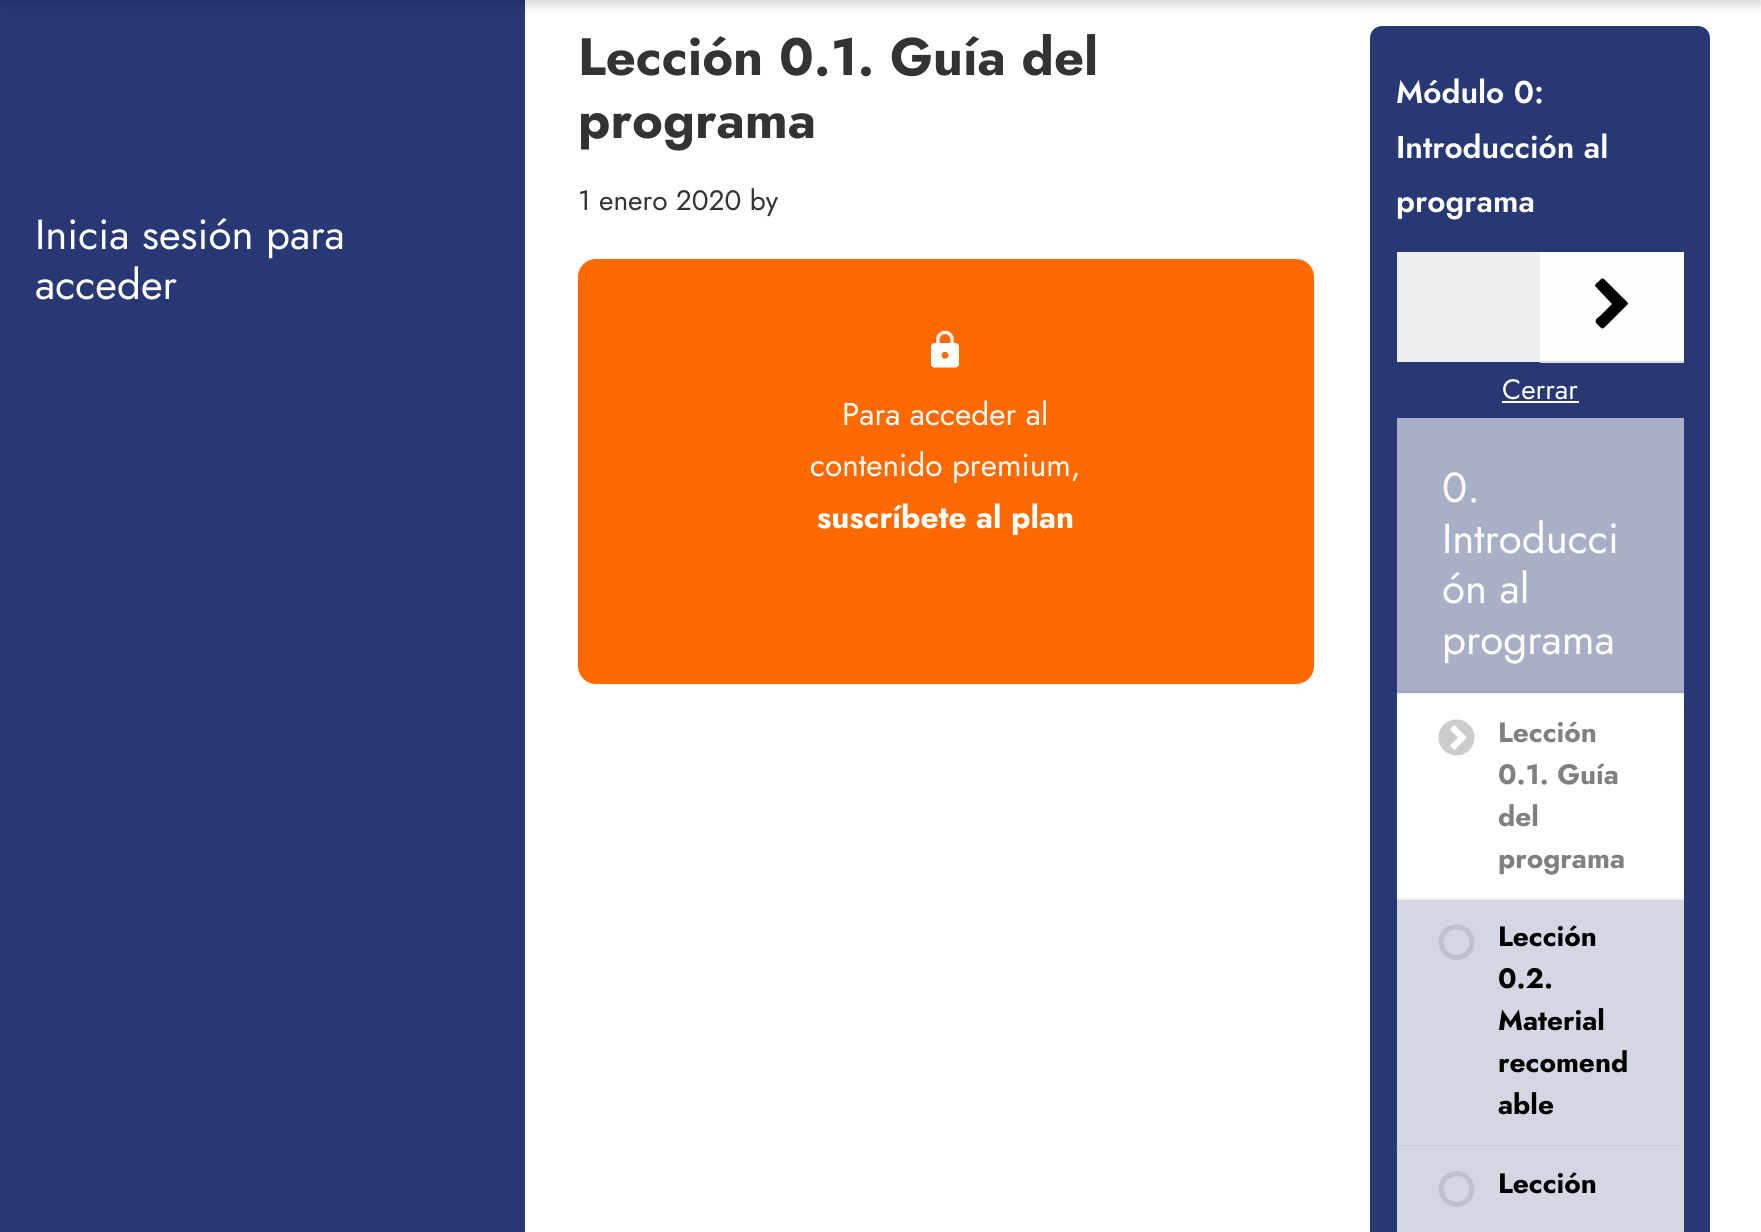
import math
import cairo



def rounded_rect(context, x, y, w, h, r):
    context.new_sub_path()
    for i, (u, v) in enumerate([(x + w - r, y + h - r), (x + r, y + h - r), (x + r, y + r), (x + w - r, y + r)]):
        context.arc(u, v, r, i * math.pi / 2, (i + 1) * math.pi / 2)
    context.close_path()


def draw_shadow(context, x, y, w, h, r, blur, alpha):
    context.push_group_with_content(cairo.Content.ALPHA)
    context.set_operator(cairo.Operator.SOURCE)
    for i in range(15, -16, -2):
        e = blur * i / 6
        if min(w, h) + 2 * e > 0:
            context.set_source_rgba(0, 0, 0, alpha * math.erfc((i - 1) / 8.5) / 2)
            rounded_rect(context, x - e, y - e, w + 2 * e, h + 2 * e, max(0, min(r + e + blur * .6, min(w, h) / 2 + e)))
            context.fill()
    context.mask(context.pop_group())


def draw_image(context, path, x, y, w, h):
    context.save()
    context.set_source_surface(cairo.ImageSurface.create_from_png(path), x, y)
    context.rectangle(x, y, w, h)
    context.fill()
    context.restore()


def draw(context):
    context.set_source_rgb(1, 1, 1)
    context.paint()
    context.set_source_rgb(40 / 255, 56 / 255, 116 / 255)
    context.rectangle(0, 0, 525, 1232)
    context.fill()
    context.set_source_rgb(0, 0, 0)
    draw_shadow(context, 0, -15, 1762, 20, 0, 5, 0.16)
    context.set_source_rgb(1, 105 / 255, 0)
    rounded_rect(context, 578, 259, 736, 425, 18)
    context.fill()
    draw_image(context, "images/1.png", 931, 330, 28, 38)
    context.set_source_rgb(40 / 255, 56 / 255, 116 / 255)
    rounded_rect(context, 1370, 26, 340, 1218, 12)
    context.fill()
    context.set_source_rgb(238 / 255, 238 / 255, 238 / 255)
    context.rectangle(1397, 252, 143, 110)
    context.fill()
    context.set_source_rgb(221 / 255, 221 / 255, 221 / 255)
    context.rectangle(1540, 361, 144, 2)
    context.fill()
    context.set_source_rgb(254 / 255, 254 / 255, 254 / 255)
    context.rectangle(1540, 252, 144, 109)
    context.fill()
    context.set_source_rgb(0, 0, 0)
    context.new_path()
    context.move_to(1627, 305)
    context.line_to(1608, 324)
    context.curve_to(1602, 330, 1603, 330, 1597, 324)
    context.curve_to(1593, 320, 1598, 318, 1601, 315)
    context.line_to(1612, 304)
    context.line_to(1595, 286)
    context.curve_to(1595, 284, 1597, 283, 1598, 282)
    context.curve_to(1603, 277, 1602, 277, 1608, 283)
    context.line_to(1623, 298)
    context.curve_to(1624, 299, 1628, 302, 1628, 304)
    context.close_path()
    context.fill()
    context.set_source_rgb(1, 1, 1)
    context.rectangle(1502, 401, 77, 2)
    context.fill()
    context.set_source_rgb(169 / 255, 175 / 255, 198 / 255)
    context.rectangle(1397, 418, 287, 273)
    context.fill()
    context.set_source_rgb(161 / 255, 166 / 255, 188 / 255)
    context.rectangle(1397, 691, 287, 2)
    context.fill()
    context.set_source_rgb(1, 1, 1)
    context.rectangle(1397, 695, 287, 203)
    context.fill()
    context.set_source_rgb(245 / 255, 245 / 255, 245 / 255)
    context.rectangle(1397, 693, 287, 2)
    context.fill()
    context.set_source_rgb(242 / 255, 242 / 255, 242 / 255)
    context.rectangle(1397, 898, 287, 2)
    context.fill()
    draw_image(context, "images/2.png", 1438, 719, 37, 37)
    context.set_source_rgb(212 / 255, 215 / 255, 227 / 255)
    context.rectangle(1397, 900, 287, 246)
    context.fill()
    context.set_source_rgba(0, 0, 0, 0.05)
    context.rectangle(1397, 1145, 287, 2)
    context.fill()
    draw_image(context, "images/3.png", 1438, 924, 37, 37)
    context.set_source_rgba(1, 1, 1, 0.8)
    context.rectangle(1397, 1146, 287, 86)
    context.fill()
    draw_image(context, "images/4.png", 1438, 1171, 37, 36)
    context.select_font_face("Jost")
    context.set_font_size(42)
    context.set_source_rgb(1, 1, 1)
    context.move_to(35, 249)
    context.show_text("Inicia sesión para")
    context.move_to(35, 299)
    context.show_text("acceder")
    context.select_font_face("Jost", cairo.FontSlant.NORMAL, cairo.FontWeight.BOLD)
    context.set_font_size(52.5)
    context.set_source_rgb(51 / 255, 51 / 255, 51 / 255)
    context.move_to(578, 75)
    context.show_text("Lección 0.1. Guía del")
    context.move_to(578, 138)
    context.show_text("programa")
    context.select_font_face("Jost")
    context.set_font_size(28)
    context.move_to(578, 210)
    context.show_text("1 enero 2020 by")
    context.set_font_size(31.5)
    context.set_source_rgb(1, 1, 1)
    context.move_to(842, 425)
    context.show_text("Para acceder al")
    context.move_to(810, 476)
    context.show_text("contenido premium,")
    context.select_font_face("Jost", cairo.FontSlant.NORMAL, cairo.FontWeight.BOLD)
    context.move_to(817, 528)
    context.show_text("suscríbete al plan")
    context.select_font_face("Jost SemiBold")
    context.move_to(1396, 103)
    context.show_text("Módulo 0:")
    context.move_to(1396, 158)
    context.show_text("Introducción al")
    context.move_to(1396, 212)
    context.show_text("programa")
    context.select_font_face("Jost")
    context.set_font_size(28)
    context.move_to(1502, 399)
    context.show_text("Cerrar")
    context.set_font_size(42)
    context.move_to(1442, 502)
    context.show_text("0.")
    context.move_to(1442, 553)
    context.show_text("Introducci")
    context.move_to(1442, 603)
    context.show_text("ón al")
    context.move_to(1442, 654)
    context.show_text("programa")
    context.select_font_face("Jost", cairo.FontSlant.NORMAL, cairo.FontWeight.BOLD)
    context.set_font_size(28)
    context.set_source_rgb(128 / 255, 128 / 255, 128 / 255)
    context.move_to(1498, 742)
    context.show_text("Lección")
    context.move_to(1498, 784)
    context.show_text("0.1. Guía")
    context.move_to(1498, 826)
    context.show_text("del")
    context.move_to(1498, 868)
    context.show_text("programa")
    context.set_source_rgb(0, 0, 0)
    context.move_to(1498, 946)
    context.show_text("Lección")
    context.move_to(1498, 988)
    context.show_text("0.2.")
    context.move_to(1498, 1030)
    context.show_text("Material")
    context.move_to(1498, 1072)
    context.show_text("recomend")
    context.move_to(1498, 1114)
    context.show_text("able")
    context.move_to(1498, 1193)
    context.show_text("Lección")


surface = cairo.ImageSurface(cairo.Format.RGB24, 1761, 1232)
context = cairo.Context(surface)
options = cairo.FontOptions()
options.set_hint_metrics(cairo.HintMetrics.OFF)
options.set_hint_style(cairo.HintStyle.NONE)
context.set_font_options(options)
context.set_miter_limit(4)
draw(context)
surface.write_to_png("out.png")
